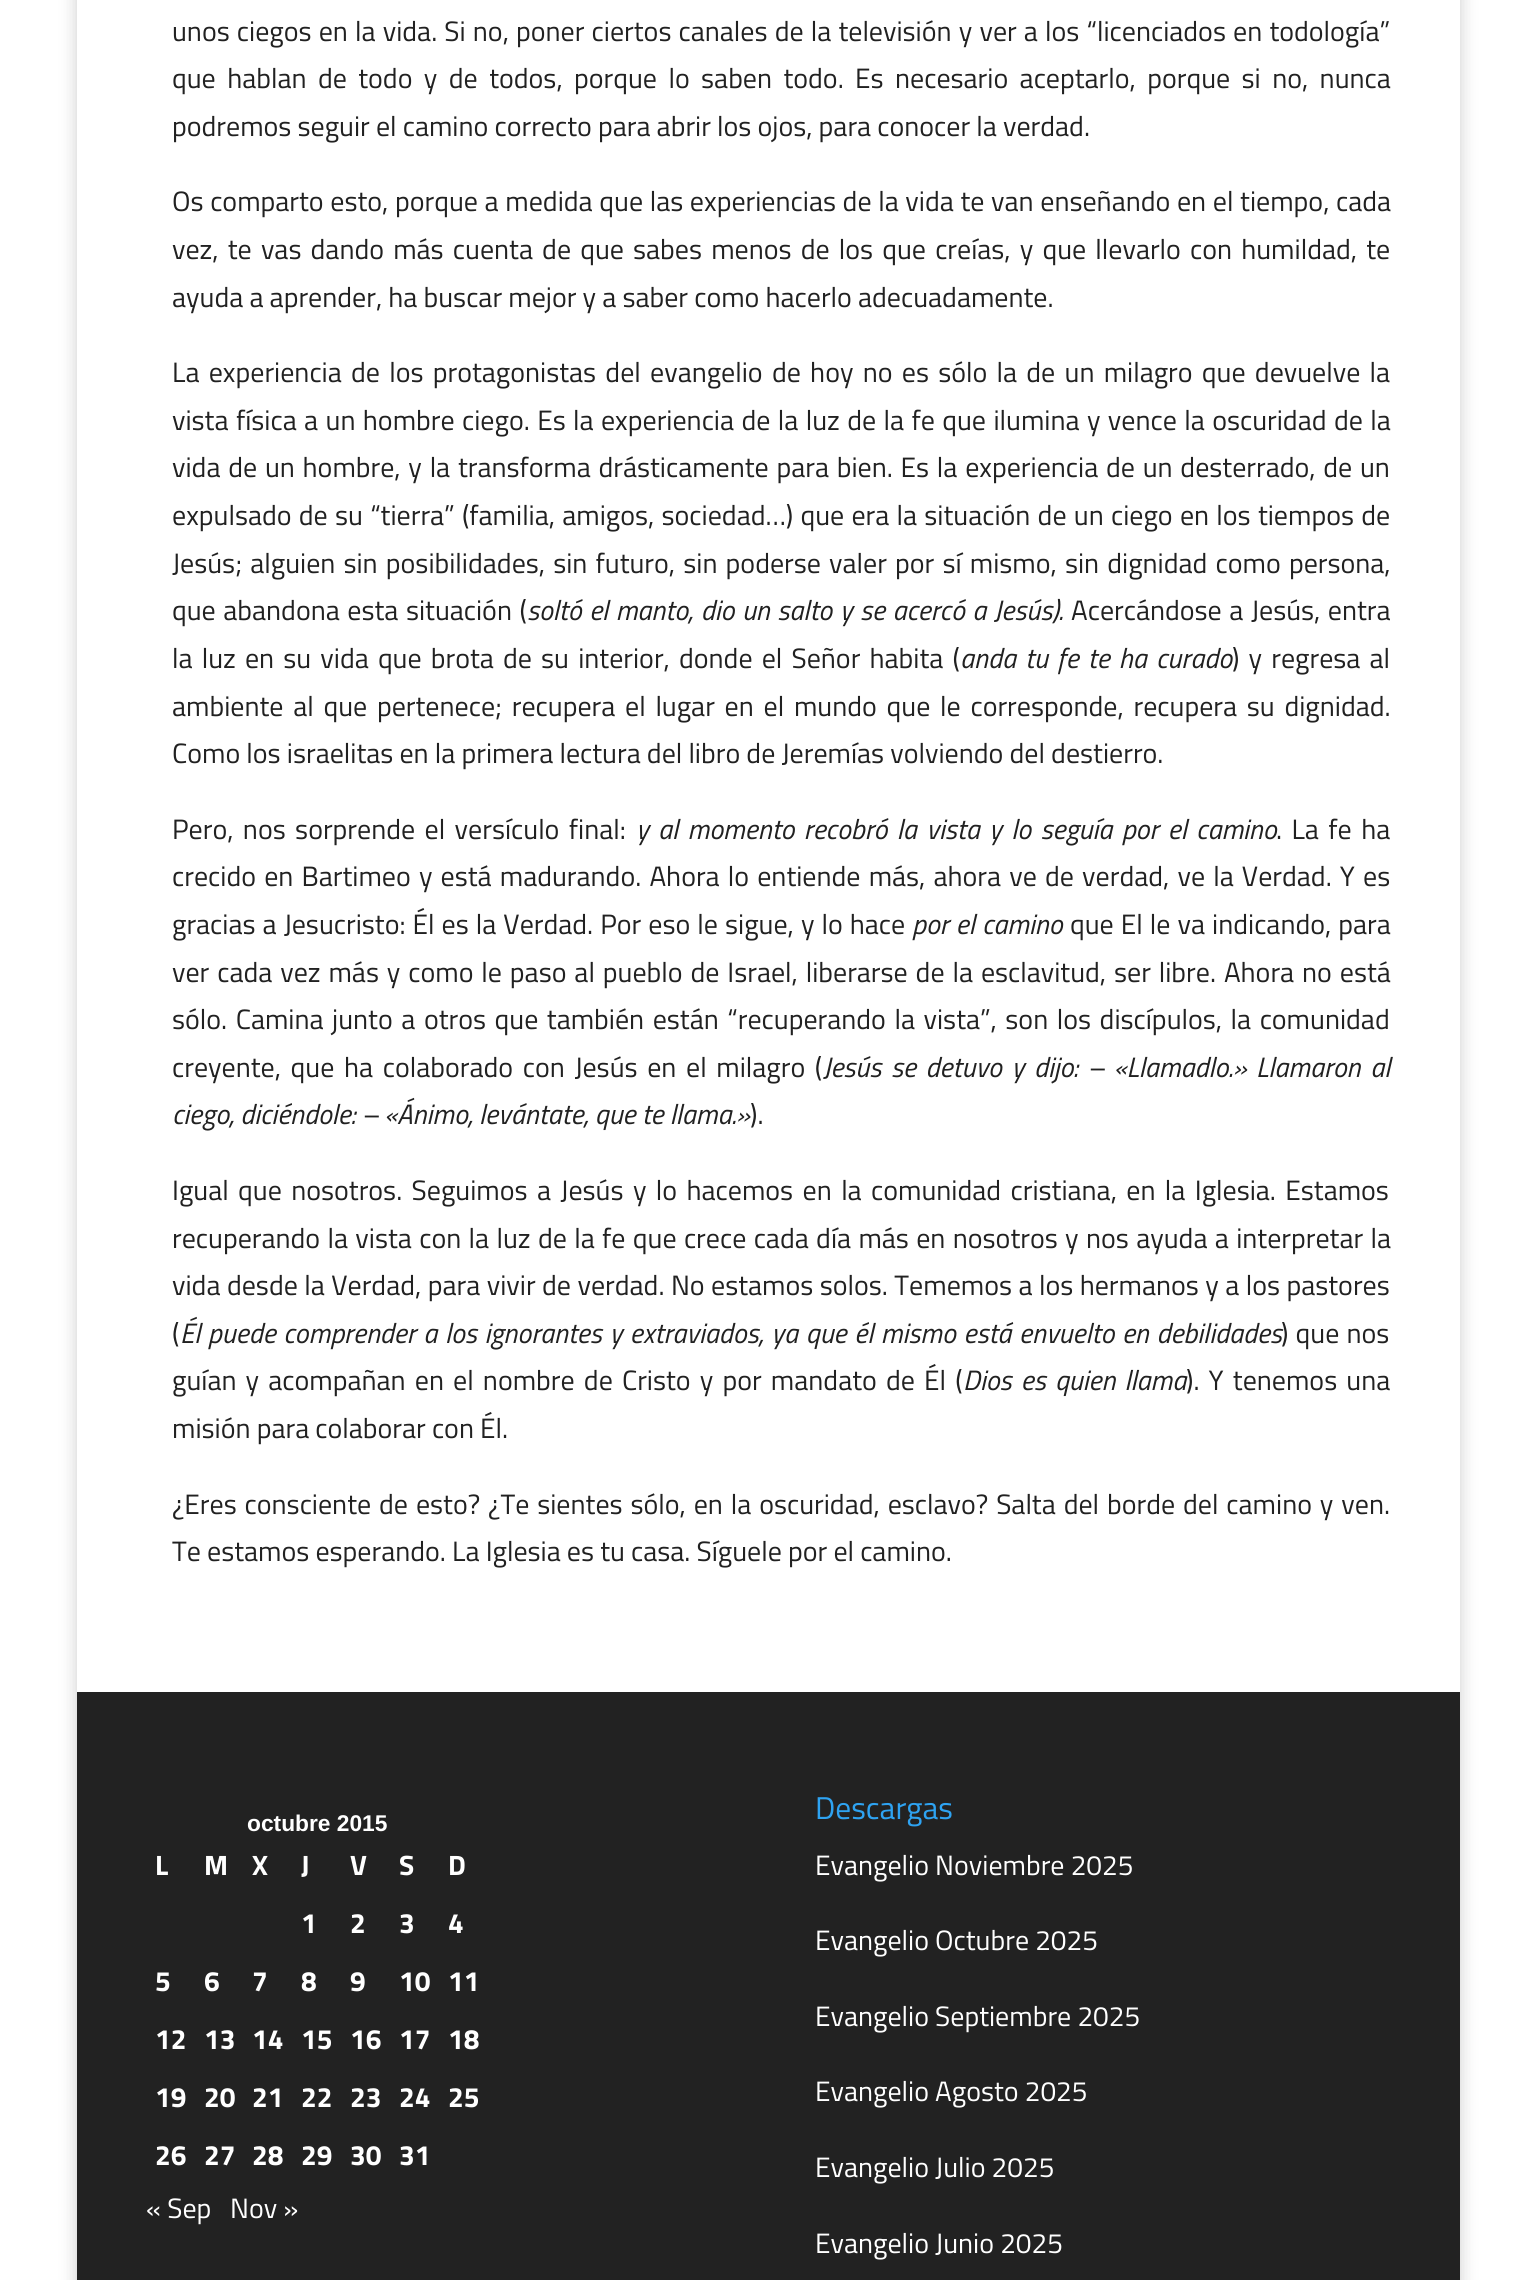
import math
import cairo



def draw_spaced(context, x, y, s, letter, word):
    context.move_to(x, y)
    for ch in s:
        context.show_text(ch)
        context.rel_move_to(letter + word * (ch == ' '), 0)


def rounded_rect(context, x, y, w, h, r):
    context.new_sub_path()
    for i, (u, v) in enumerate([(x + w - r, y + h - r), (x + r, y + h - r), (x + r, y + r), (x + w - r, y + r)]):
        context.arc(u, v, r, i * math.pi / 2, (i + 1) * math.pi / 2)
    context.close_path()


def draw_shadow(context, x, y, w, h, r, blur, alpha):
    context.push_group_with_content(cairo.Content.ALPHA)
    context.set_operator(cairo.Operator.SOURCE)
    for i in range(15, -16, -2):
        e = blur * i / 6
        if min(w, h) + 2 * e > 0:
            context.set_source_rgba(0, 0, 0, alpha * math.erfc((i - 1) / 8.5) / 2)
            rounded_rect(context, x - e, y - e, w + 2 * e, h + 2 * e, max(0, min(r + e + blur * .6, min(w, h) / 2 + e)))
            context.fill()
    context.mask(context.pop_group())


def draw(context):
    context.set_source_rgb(1, 1, 1)
    context.paint()
    context.save()
    context.set_fill_rule(cairo.FillRule.EVEN_ODD)
    context.new_path()
    context.move_to(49, 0)
    context.line_to(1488, 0)
    context.line_to(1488, 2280)
    context.line_to(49, 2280)
    context.close_path()
    context.move_to(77, -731)
    context.line_to(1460, -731)
    context.line_to(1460, 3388)
    context.line_to(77, 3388)
    context.close_path()
    context.clip()
    context.set_source_rgb(0, 0, 0)
    draw_shadow(context, 77, -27, 1383, 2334, 0, 9, 0.2)
    context.restore()
    context.set_source_rgb(1, 1, 1)
    context.rectangle(1459, 0, 1, 1619)
    context.fill()
    context.set_source_rgb(34 / 255, 34 / 255, 34 / 255)
    context.rectangle(77, 1692, 1383, 588)
    context.fill()
    context.select_font_face("Titillium Web")
    context.set_font_size(28)
    context.set_source_rgb(33 / 255, 33 / 255, 33 / 255)
    draw_spaced(context, 172, 41, "unos ciegos en la vida. Si no, poner ciertos canales de la televisión y ver a los “licenciados en todología”", 0, 1)
    draw_spaced(context, 172, 88, "que hablan de todo y de todos, porque lo saben todo. Es necesario aceptarlo, porque si no, nunca", 0, 5.25)
    context.move_to(172, 136)
    context.show_text("podremos seguir el camino correcto para abrir los ojos, para conocer la verdad.")
    draw_spaced(context, 172, 211, "Os comparto esto, porque a medida que las experiencias de la vida te van enseñando en el tiempo, cada", 0, 0.5)
    draw_spaced(context, 172, 259, "vez, te vas dando más cuenta de que sabes menos de los que creías, y que llevarlo con humildad, te", 0, 3)
    context.move_to(172, 307)
    context.show_text("ayuda a aprender, ha buscar mejor y a saber como hacerlo adecuadamente.")
    draw_spaced(context, 172, 382, "La experiencia de los protagonistas del evangelio de hoy no es sólo la de un milagro que devuelve la", 0, 3.1)
    draw_spaced(context, 172, 430, "vista física a un hombre ciego. Es la experiencia de la luz de la fe que ilumina y vence la oscuridad de la", 0, 1.25)
    draw_spaced(context, 172, 477, "vida de un hombre, y la transforma drásticamente para bien. Es la experiencia de un desterrado, de un", 0, 1.6)
    draw_spaced(context, 172, 525, "expulsado de su “tierra” (familia, amigos, sociedad…) que era la situación de un ciego en los tiempos de", 0, 1.1)
    draw_spaced(context, 172, 573, "Jesús; alguien sin posibilidades, sin futuro, sin poderse valer por sí mismo, sin dignidad como persona,", 0, 2)
    draw_spaced(context, 172, 620, "que abandona esta situación (", 0, 1.4)
    context.select_font_face("Titillium Web", cairo.FontSlant.ITALIC)
    draw_spaced(context, 527, 620, "soltó el manto, dio un salto y se acercó a Jesús).", 0, 1.4)
    context.select_font_face("Titillium Web")
    draw_spaced(context, 1071, 620, "Acercándose a Jesús, entra", 0, 1.4)
    draw_spaced(context, 172, 668, "la luz en su vida que brota de su interior, donde el Señor habita (", 0, 3)
    context.select_font_face("Titillium Web", cairo.FontSlant.ITALIC)
    draw_spaced(context, 960, 668, "anda tu fe te ha curado", 0, 3)
    context.select_font_face("Titillium Web")
    draw_spaced(context, 1232, 668, ") y regresa al", 0, 3)
    draw_spaced(context, 172, 716, "ambiente al que pertenece; recupera el lugar en el mundo que le corresponde, recupera su dignidad.", 0, 3.6)
    context.move_to(172, 763)
    context.show_text("Como los israelitas en la primera lectura del libro de Jeremías volviendo del destierro.")
    draw_spaced(context, 172, 839, "Pero, nos sorprende el versículo final:", 0, 3.25)
    context.select_font_face("Titillium Web", cairo.FontSlant.ITALIC)
    draw_spaced(context, 636, 839, "y al momento recobró la vista y lo seguía por el camino", 0, 3.25)
    context.select_font_face("Titillium Web")
    draw_spaced(context, 1276, 839, ". La fe ha", 0, 3.25)
    draw_spaced(context, 172, 886, "crecido en Bartimeo y está madurando. Ahora lo entiende más, ahora ve de verdad, ve la Verdad. Y es", 0, 2)
    draw_spaced(context, 172, 934, "gracias a Jesucristo: Él es la Verdad. Por eso le sigue, y lo hace", 0, 0.9)
    context.select_font_face("Titillium Web", cairo.FontSlant.ITALIC)
    draw_spaced(context, 912, 934, "por el camino", 0, 1)
    context.select_font_face("Titillium Web")
    draw_spaced(context, 1070, 934, "que El le va indicando, para", 0, 0.9)
    draw_spaced(context, 172, 982, "ver cada vez más y como le paso al pueblo de Israel, liberarse de la esclavitud, ser libre. Ahora no está", 0, 1.75)
    draw_spaced(context, 172, 1029, "sólo. Camina junto a otros que también están “recuperando la vista”, son los discípulos, la comunidad", 0, 2.4)
    draw_spaced(context, 172, 1077, "creyente, que ha colaborado con Jesús en el milagro (", 0, 3.5)
    context.select_font_face("Titillium Web", cairo.FontSlant.ITALIC)
    draw_spaced(context, 823, 1077, "Jesús se detuvo y dijo: – «Llamadlo.» Llamaron al", 0, 3.5)
    context.move_to(172, 1124)
    context.show_text("ciego, diciéndole: – «Ánimo, levántate, que te llama.»")
    context.select_font_face("Titillium Web")
    context.move_to(750, 1124)
    context.show_text(").")
    draw_spaced(context, 172, 1200, "Igual que nosotros. Seguimos a Jesús y lo hacemos en la comunidad cristiana, en la Iglesia. Estamos", 0, 3.25)
    draw_spaced(context, 172, 1248, "recuperando la vista con la luz de la fe que crece cada día más en nosotros y nos ayuda a interpretar la", 0, 1.2)
    draw_spaced(context, 172, 1295, "vida desde la Verdad, para vivir de verdad. No estamos solos. Tememos a los hermanos y a los pastores", 0, 0.3)
    context.move_to(172, 1343)
    context.show_text("(")
    context.select_font_face("Titillium Web", cairo.FontSlant.ITALIC)
    draw_spaced(context, 180, 1343, "Él puede comprender a los ignorantes y extraviados, ya que él mismo está envuelto en debilidades", 0, 1.5)
    context.select_font_face("Titillium Web")
    draw_spaced(context, 1281, 1343, ") que nos", 0, 1)
    draw_spaced(context, 172, 1390, "guían y acompañan en el nombre de Cristo y por mandato de Él (", 0, 3)
    context.select_font_face("Titillium Web", cairo.FontSlant.ITALIC)
    draw_spaced(context, 963, 1390, "Dios es quien llama", 0, 3)
    context.select_font_face("Titillium Web")
    draw_spaced(context, 1186, 1390, "). Y tenemos una", 0, 3)
    context.move_to(172, 1438)
    context.show_text("misión para colaborar con Él.")
    draw_spaced(context, 172, 1514, "¿Eres consciente de esto? ¿Te sientes sólo, en la oscuridad, esclavo? Salta del borde del camino y ven.", 0, 1.75)
    context.move_to(172, 1561)
    context.show_text("Te estamos esperando. La Iglesia es tu casa. Síguele por el camino.")
    context.select_font_face("Liberation Sans", cairo.FontSlant.NORMAL, cairo.FontWeight.BOLD)
    context.set_font_size(22.75)
    context.set_source_rgb(1, 1, 1)
    context.move_to(247, 1831)
    context.show_text("octubre 2015")
    context.select_font_face("Titillium Web", cairo.FontSlant.NORMAL, cairo.FontWeight.BOLD)
    context.set_font_size(28)
    context.move_to(155, 1875)
    context.show_text("L")
    context.move_to(204, 1875)
    context.show_text("M")
    context.move_to(252, 1875)
    context.show_text("X")
    context.move_to(301, 1875)
    context.show_text("J")
    context.move_to(350, 1875)
    context.show_text("V")
    context.move_to(399, 1875)
    context.show_text("S")
    context.move_to(448, 1875)
    context.show_text("D")
    context.move_to(301, 1933)
    context.show_text("1")
    context.move_to(350, 1933)
    context.show_text("2")
    context.move_to(399, 1933)
    context.show_text("3")
    context.move_to(448, 1933)
    context.show_text("4")
    context.move_to(155, 1991)
    context.show_text("5")
    context.move_to(204, 1991)
    context.show_text("6")
    context.move_to(252, 1991)
    context.show_text("7")
    context.move_to(301, 1991)
    context.show_text("8")
    context.move_to(350, 1991)
    context.show_text("9")
    context.move_to(399, 1991)
    context.show_text("10")
    context.move_to(448, 1991)
    context.show_text("11")
    context.move_to(155, 2049)
    context.show_text("12")
    context.move_to(204, 2049)
    context.show_text("13")
    context.move_to(252, 2049)
    context.show_text("14")
    context.move_to(301, 2049)
    context.show_text("15")
    context.move_to(350, 2049)
    context.show_text("16")
    context.move_to(399, 2049)
    context.show_text("17")
    context.move_to(448, 2049)
    context.show_text("18")
    context.move_to(155, 2107)
    context.show_text("19")
    context.move_to(204, 2107)
    context.show_text("20")
    context.move_to(252, 2107)
    context.show_text("21")
    context.move_to(301, 2107)
    context.show_text("22")
    context.move_to(350, 2107)
    context.show_text("23")
    context.move_to(399, 2107)
    context.show_text("24")
    context.move_to(448, 2107)
    context.show_text("25")
    context.move_to(155, 2165)
    context.show_text("26")
    context.move_to(204, 2165)
    context.show_text("27")
    context.move_to(252, 2165)
    context.show_text("28")
    context.move_to(301, 2165)
    context.show_text("29")
    context.move_to(350, 2165)
    context.show_text("30")
    context.move_to(399, 2165)
    context.show_text("31")
    context.select_font_face("Titillium Web")
    context.move_to(146, 2218)
    context.show_text("« Sep")
    context.move_to(230, 2218)
    context.show_text("Nov »")
    context.set_font_size(31.5)
    context.set_source_rgb(46 / 255, 163 / 255, 242 / 255)
    context.move_to(815, 1819)
    context.show_text("Descargas")
    context.set_font_size(28)
    context.set_source_rgb(1, 1, 1)
    context.move_to(815, 1875)
    context.show_text("Evangelio Noviembre 2025")
    context.move_to(815, 1950)
    context.show_text("Evangelio Octubre 2025")
    context.move_to(815, 2026)
    context.show_text("Evangelio Septiembre 2025")
    context.move_to(815, 2101)
    context.show_text("Evangelio Agosto 2025")
    context.move_to(815, 2177)
    context.show_text("Evangelio Julio 2025")
    context.move_to(815, 2253)
    context.show_text("Evangelio Junio 2025")


surface = cairo.ImageSurface(cairo.Format.RGB24, 1536, 2280)
context = cairo.Context(surface)
options = cairo.FontOptions()
options.set_hint_metrics(cairo.HintMetrics.OFF)
options.set_hint_style(cairo.HintStyle.NONE)
context.set_font_options(options)
context.set_miter_limit(4)
draw(context)
surface.write_to_png("out.png")
